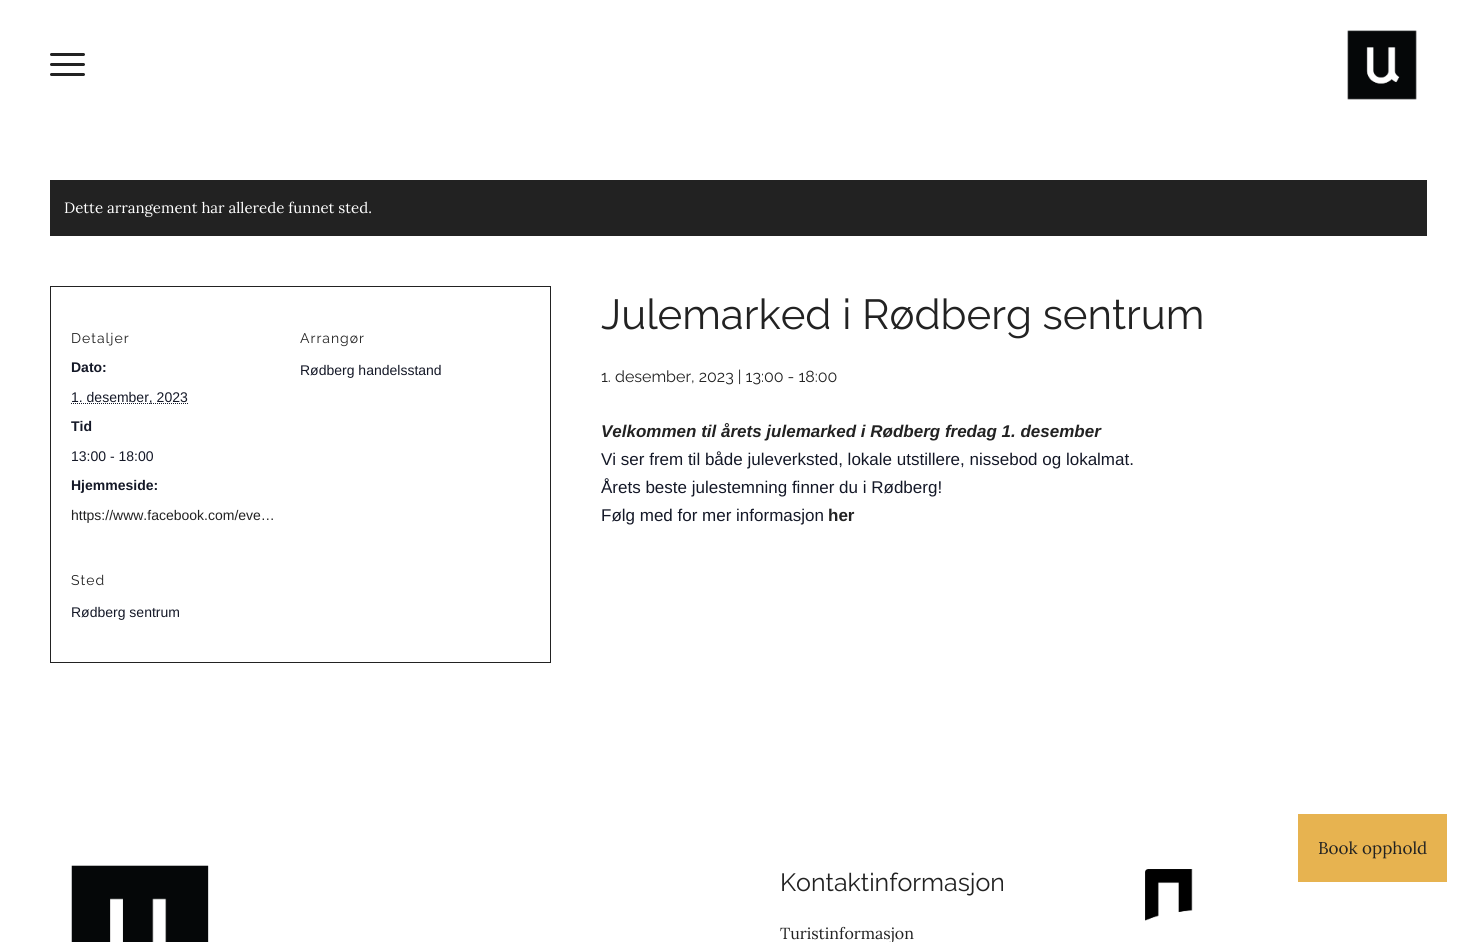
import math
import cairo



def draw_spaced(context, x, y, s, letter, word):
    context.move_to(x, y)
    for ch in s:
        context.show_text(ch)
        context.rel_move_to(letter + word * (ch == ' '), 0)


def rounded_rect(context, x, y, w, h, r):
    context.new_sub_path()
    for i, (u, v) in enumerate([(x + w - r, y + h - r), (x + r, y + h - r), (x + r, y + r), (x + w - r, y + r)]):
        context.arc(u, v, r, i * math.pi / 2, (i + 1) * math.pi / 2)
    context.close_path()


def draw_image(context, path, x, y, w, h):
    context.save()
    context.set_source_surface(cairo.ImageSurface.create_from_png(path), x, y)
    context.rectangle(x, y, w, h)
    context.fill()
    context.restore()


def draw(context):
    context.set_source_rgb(1, 1, 1)
    context.paint()
    context.set_source_rgb(34 / 255, 34 / 255, 34 / 255)
    rounded_rect(context, 50, 63, 35, 3, 1.5)
    context.fill()
    rounded_rect(context, 50, 53, 35, 3, 1.5)
    context.fill()
    rounded_rect(context, 50, 73, 35, 3, 1.5)
    context.fill()
    draw_image(context, "images/1.png", 1347, 30, 70, 70)
    context.rectangle(50, 180, 1377, 56)
    context.fill()
    context.rectangle(50.5, 286.5, 500, 376)
    context.set_line_width(1)
    context.stroke()
    context.new_path()
    context.move_to(71, 403.5)
    context.line_to(188, 403.5)
    context.set_source_rgb(20 / 255, 24 / 255, 39 / 255)
    context.set_dash([1, 1])
    context.stroke()
    context.set_source_rgb(231 / 255, 179 / 255, 80 / 255)
    context.rectangle(1298, 814, 149, 68)
    context.fill()
    draw_image(context, "images/2.png", 71, 865, 138, 77)
    draw_image(context, "images/3.png", 1145, 869, 48, 52)
    context.select_font_face("Lora")
    context.set_font_size(15)
    context.set_source_rgb(1, 1, 1)
    context.move_to(64, 213)
    context.show_text("Dette arrangement har allerede funnet sted.")
    context.select_font_face("Raleway Thin")
    context.set_font_size(14)
    context.set_source_rgb(34 / 255, 34 / 255, 34 / 255)
    draw_spaced(context, 71, 343, "Detaljer", 1, 0)
    context.select_font_face("Liberation Sans", cairo.FontSlant.NORMAL, cairo.FontWeight.BOLD)
    context.set_source_rgb(20 / 255, 24 / 255, 39 / 255)
    context.move_to(71, 372)
    context.show_text("Dato:")
    context.select_font_face("Liberation Sans")
    context.move_to(71, 402)
    context.show_text("1. desember, 2023")
    context.select_font_face("Liberation Sans", cairo.FontSlant.NORMAL, cairo.FontWeight.BOLD)
    context.move_to(71, 431)
    context.show_text("Tid")
    context.select_font_face("Liberation Sans")
    context.move_to(71, 461)
    context.show_text("13:00 - 18:00")
    context.select_font_face("Liberation Sans", cairo.FontSlant.NORMAL, cairo.FontWeight.BOLD)
    context.move_to(71, 490)
    context.show_text("Hjemmeside:")
    context.select_font_face("Liberation Sans")
    context.set_source_rgb(34 / 255, 34 / 255, 34 / 255)
    context.move_to(71, 520)
    context.show_text("https://www.facebook.com/eve…")
    context.select_font_face("Raleway Thin")
    draw_spaced(context, 300, 343, "Arrangør", 1, 0)
    context.select_font_face("Liberation Sans")
    context.set_source_rgb(20 / 255, 24 / 255, 39 / 255)
    context.move_to(300, 375)
    context.show_text("Rødberg handelsstand")
    context.select_font_face("Raleway Thin")
    context.set_source_rgb(34 / 255, 34 / 255, 34 / 255)
    draw_spaced(context, 71, 585, "Sted", 1, 0)
    context.select_font_face("Liberation Sans")
    context.set_source_rgb(20 / 255, 24 / 255, 39 / 255)
    context.move_to(71, 617)
    context.show_text("Rødberg sentrum")
    context.select_font_face("Raleway Thin")
    context.set_font_size(42)
    context.set_source_rgb(34 / 255, 34 / 255, 34 / 255)
    context.move_to(601, 329)
    context.show_text("Julemarked i Rødberg sentrum")
    context.set_font_size(16)
    context.move_to(601, 382)
    context.show_text("1. desember, 2023 | 13:00 - 18:00")
    context.select_font_face("Liberation Sans", cairo.FontSlant.ITALIC, cairo.FontWeight.BOLD)
    context.set_font_size(17)
    context.move_to(601, 437)
    context.show_text("Velkommen til årets julemarked i Rødberg fredag 1. desember")
    context.select_font_face("Liberation Sans")
    context.set_source_rgb(20 / 255, 24 / 255, 39 / 255)
    context.move_to(601, 465)
    context.show_text("Vi ser frem til både juleverksted, lokale utstillere, nissebod og lokalmat.")
    context.move_to(601, 493)
    context.show_text("Årets beste julestemning finner du i Rødberg!")
    context.move_to(601, 521)
    context.show_text("Følg med for mer informasjon")
    context.select_font_face("Liberation Sans", cairo.FontSlant.NORMAL, cairo.FontWeight.BOLD)
    context.set_source_rgb(34 / 255, 34 / 255, 34 / 255)
    context.move_to(828, 521)
    context.show_text("her")
    context.select_font_face("Lora")
    context.move_to(1318, 854)
    context.show_text("Book opphold")
    context.select_font_face("Raleway Thin")
    context.set_font_size(25)
    context.move_to(780, 891)
    context.show_text("Kontaktinformasjon")
    context.select_font_face("Lora")
    context.set_font_size(16)
    context.move_to(780, 939)
    context.show_text("Turistinformasjon")


surface = cairo.ImageSurface(cairo.Format.RGB24, 1477, 942)
context = cairo.Context(surface)
options = cairo.FontOptions()
options.set_hint_metrics(cairo.HintMetrics.OFF)
options.set_hint_style(cairo.HintStyle.NONE)
context.set_font_options(options)
context.set_miter_limit(4)
draw(context)
surface.write_to_png("out.png")
